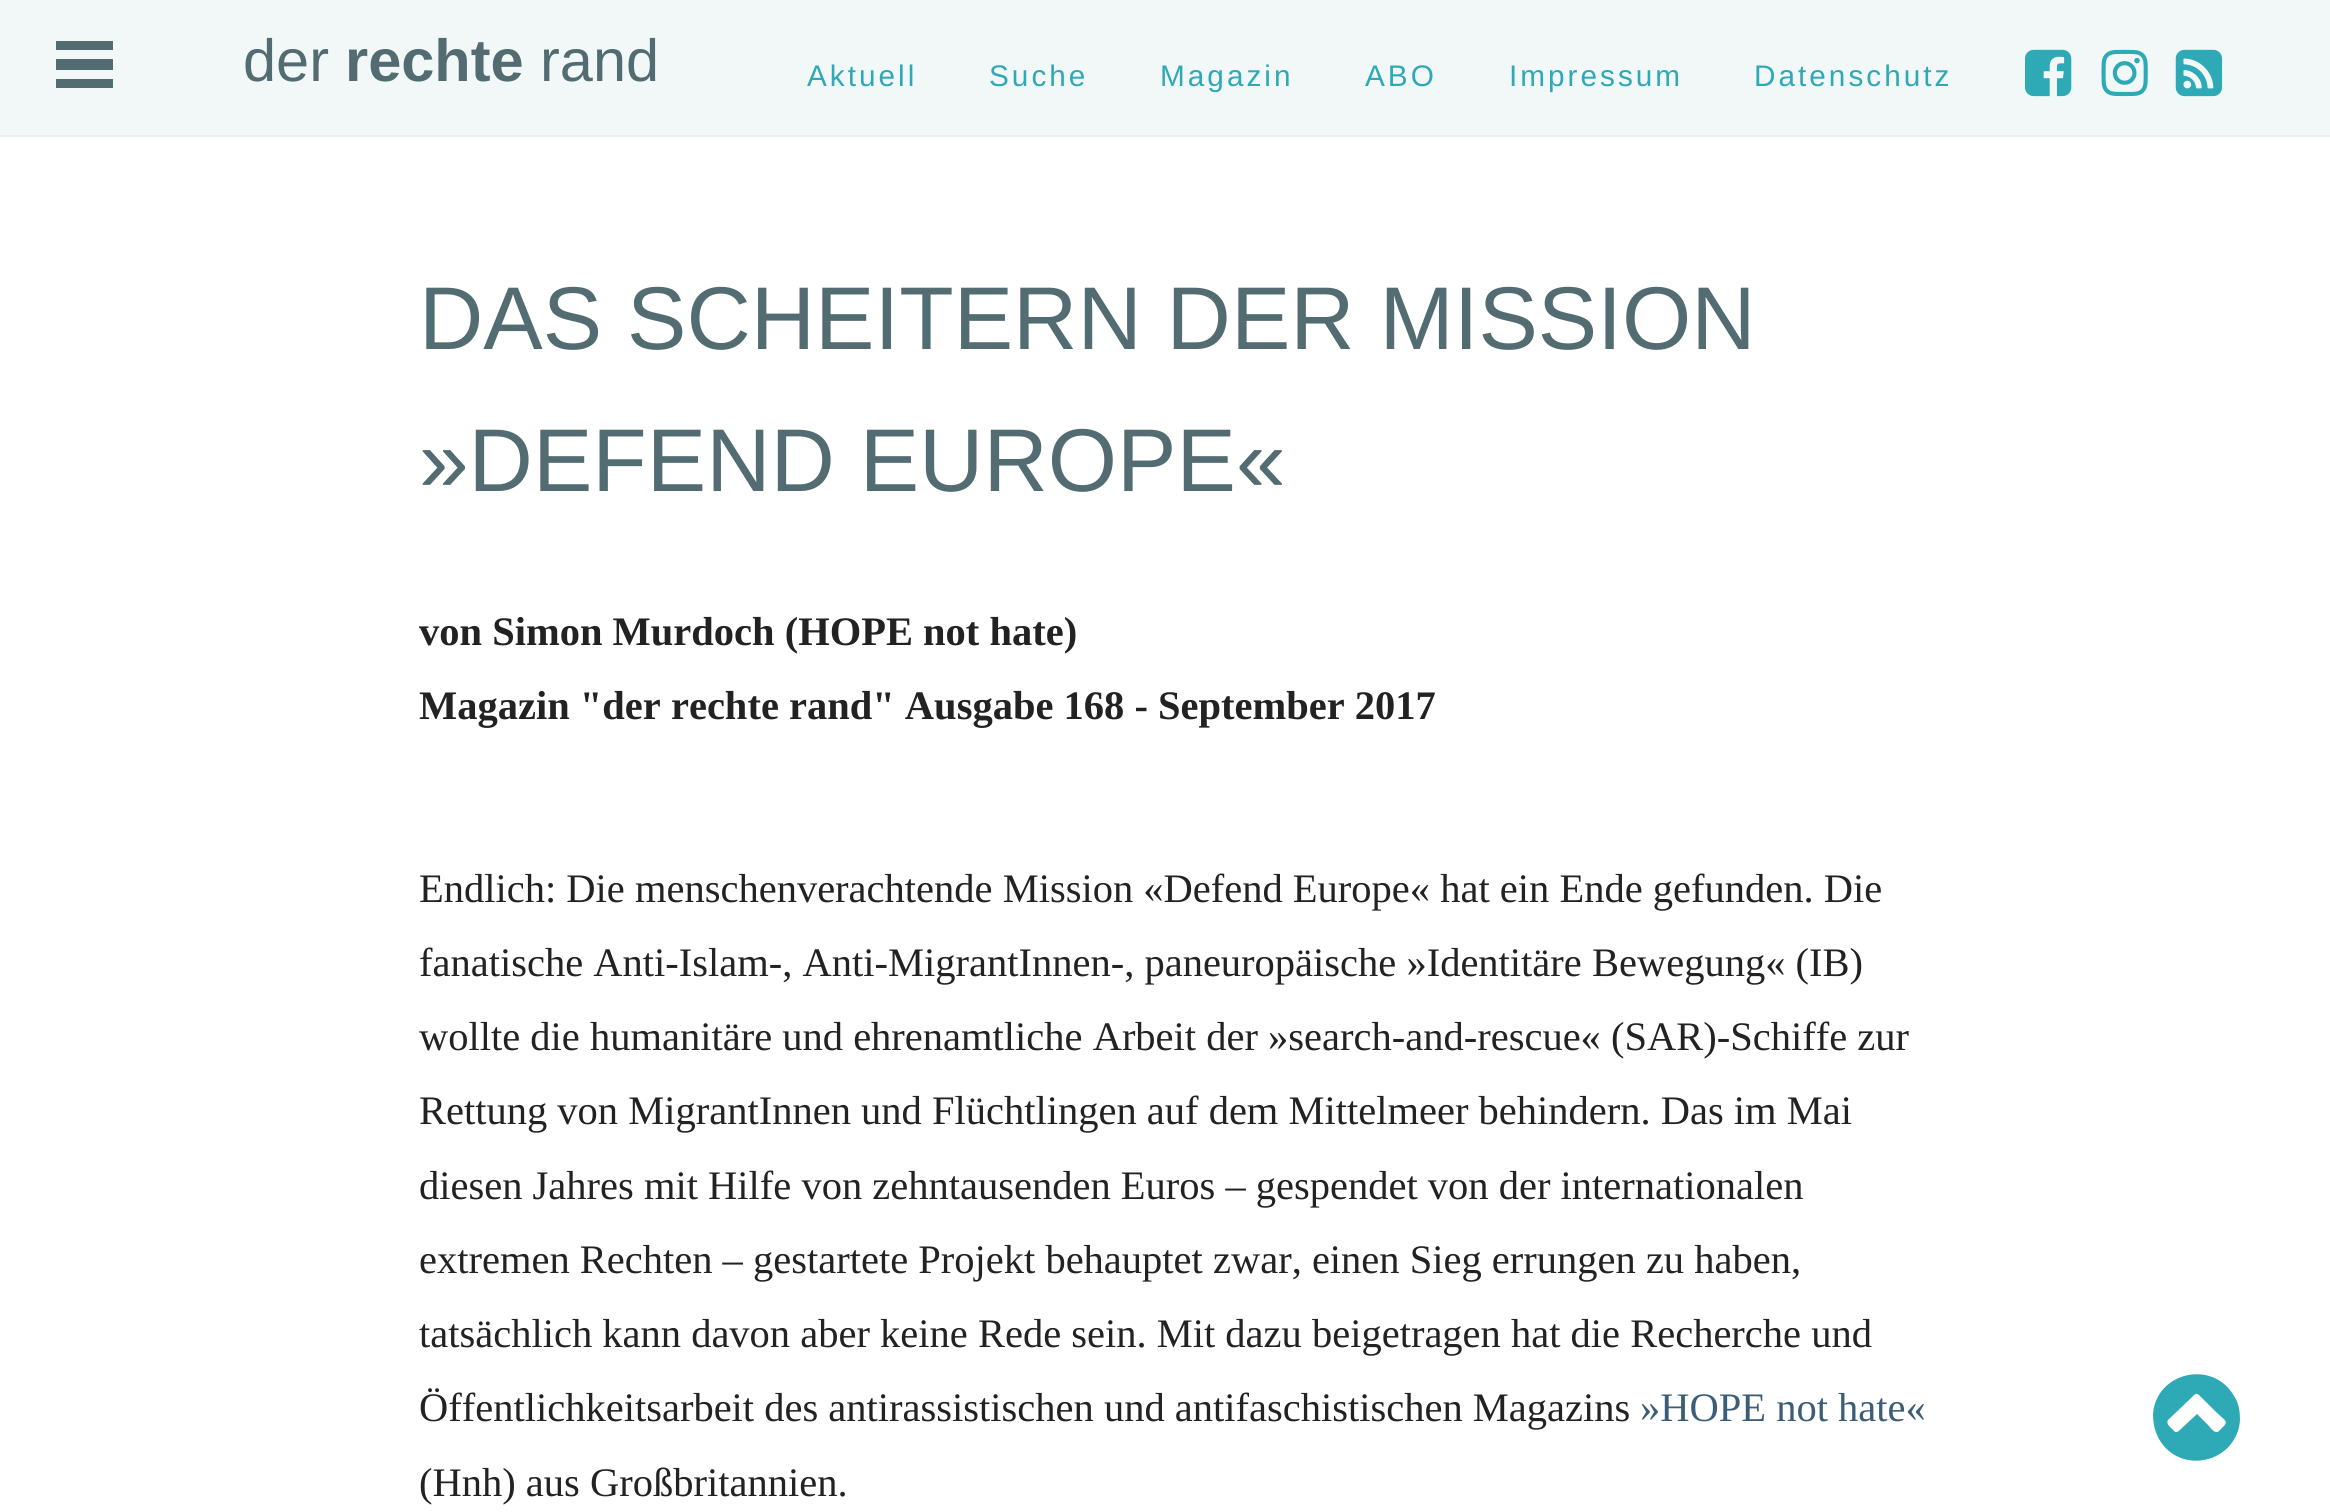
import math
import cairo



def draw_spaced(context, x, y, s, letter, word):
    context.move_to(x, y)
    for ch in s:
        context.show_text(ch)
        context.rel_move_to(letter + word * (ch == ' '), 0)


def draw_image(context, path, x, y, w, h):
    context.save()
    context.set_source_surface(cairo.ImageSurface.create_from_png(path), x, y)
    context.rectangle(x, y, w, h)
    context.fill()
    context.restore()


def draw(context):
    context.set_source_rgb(1, 1, 1)
    context.paint()
    context.set_source_rgb(242 / 255, 248 / 255, 248 / 255)
    context.rectangle(0, 0, 2330, 135)
    context.fill()
    context.set_source_rgb(83 / 255, 108 / 255, 113 / 255)
    context.rectangle(56, 41, 57, 9)
    context.fill()
    context.rectangle(56, 59, 57, 11)
    context.fill()
    context.rectangle(56, 79, 57, 9)
    context.fill()
    context.set_source_rgb(233 / 255, 237 / 255, 237 / 255)
    context.rectangle(0, 135, 2330, 2)
    context.fill()
    draw_image(context, "images/1.png", 2025, 49, 47, 48)
    draw_image(context, "images/2.png", 2101, 49, 47, 48)
    draw_image(context, "images/3.png", 2175, 49, 48, 48)
    context.set_source_rgb(46 / 255, 169 / 255, 182 / 255)
    context.new_path()
    context.move_to(2219, 1431)
    context.curve_to(2229, 1421, 2228, 1423, 2216, 1412)
    context.line_to(2203, 1399)
    context.curve_to(2196, 1392, 2197, 1392, 2190, 1399)
    context.line_to(2168, 1420)
    context.curve_to(2166, 1423, 2169, 1426, 2171, 1428)
    context.curve_to(2176, 1433, 2176, 1434, 2182, 1428)
    context.line_to(2197, 1414)
    context.line_to(2208, 1425)
    context.curve_to(2210, 1427, 2215, 1435, 2219, 1431)
    context.close_path()
    context.move_to(2234, 1396)
    context.curve_to(2239, 1403, 2240, 1412, 2240, 1420)
    context.curve_to(2237, 1463, 2180, 1476, 2159, 1439)
    context.curve_to(2155, 1432, 2153, 1423, 2153, 1414)
    context.curve_to(2156, 1372, 2213, 1359, 2234, 1396)
    context.close_path()
    context.fill()
    context.select_font_face("Liberation Sans")
    context.set_font_size(59.5)
    context.set_source_rgb(83 / 255, 108 / 255, 113 / 255)
    context.move_to(243, 81)
    context.show_text("der")
    context.select_font_face("Liberation Sans", cairo.FontSlant.NORMAL, cairo.FontWeight.BOLD)
    context.move_to(345, 81)
    context.show_text("rechte")
    context.select_font_face("Liberation Sans")
    context.move_to(540, 81)
    context.show_text("rand")
    context.set_font_size(29.75)
    context.set_source_rgb(46 / 255, 169 / 255, 182 / 255)
    draw_spaced(context, 807, 86, "Aktuell", 3, 0)
    draw_spaced(context, 989, 86, "Suche", 3, 0)
    draw_spaced(context, 1160, 86, "Magazin", 3, 0)
    draw_spaced(context, 1365, 86, "ABO", 3, 0)
    draw_spaced(context, 1509, 86, "Impressum", 3, 0)
    draw_spaced(context, 1754, 86, "Datenschutz", 3, 0)
    context.set_font_size(89.1)
    context.set_source_rgb(83 / 255, 108 / 255, 113 / 255)
    context.move_to(419, 349)
    context.show_text("DAS SCHEITERN DER MISSION")
    context.move_to(419, 491)
    context.show_text("»DEFEND EUROPE«")
    context.select_font_face("Liberation Serif", cairo.FontSlant.NORMAL, cairo.FontWeight.BOLD)
    context.set_font_size(40.5)
    context.set_source_rgb(34 / 255, 34 / 255, 34 / 255)
    context.move_to(419, 645)
    context.show_text("von Simon Murdoch (HOPE not hate)")
    context.move_to(419, 719)
    context.show_text("Magazin \"der rechte rand\" Ausgabe 168 - September 2017")
    context.select_font_face("Liberation Serif")
    context.move_to(419, 902)
    context.show_text("Endlich: Die menschenverachtende Mission «Defend Europe« hat ein Ende gefunden. Die")
    context.move_to(419, 976)
    context.show_text("fanatische Anti-Islam-, Anti-MigrantInnen-, paneuropäische »Identitäre Bewegung« (IB)")
    context.move_to(419, 1050)
    context.show_text("wollte die humanitäre und ehrenamtliche Arbeit der »search-and-rescue« (SAR)-Schiffe zur")
    context.move_to(419, 1124)
    context.show_text("Rettung von MigrantInnen und Flüchtlingen auf dem Mittelmeer behindern. Das im Mai")
    context.move_to(419, 1199)
    context.show_text("diesen Jahres mit Hilfe von zehntausenden Euros – gespendet von der internationalen")
    context.move_to(419, 1273)
    context.show_text("extremen Rechten – gestartete Projekt behauptet zwar, einen Sieg errungen zu haben,")
    context.move_to(419, 1347)
    context.show_text("tatsächlich kann davon aber keine Rede sein. Mit dazu beigetragen hat die Recherche und")
    context.move_to(419, 1421)
    context.show_text("Öffentlichkeitsarbeit des antirassistischen und antifaschistischen Magazins")
    context.set_source_rgb(59 / 255, 93 / 255, 119 / 255)
    context.move_to(1640, 1421)
    context.show_text("»HOPE not hate«")
    context.set_source_rgb(34 / 255, 34 / 255, 34 / 255)
    context.move_to(419, 1496)
    context.show_text("(Hnh) aus Großbritannien.")


surface = cairo.ImageSurface(cairo.Format.RGB24, 2330, 1512)
context = cairo.Context(surface)
options = cairo.FontOptions()
options.set_hint_metrics(cairo.HintMetrics.OFF)
options.set_hint_style(cairo.HintStyle.NONE)
context.set_font_options(options)
context.set_miter_limit(4)
draw(context)
surface.write_to_png("out.png")
